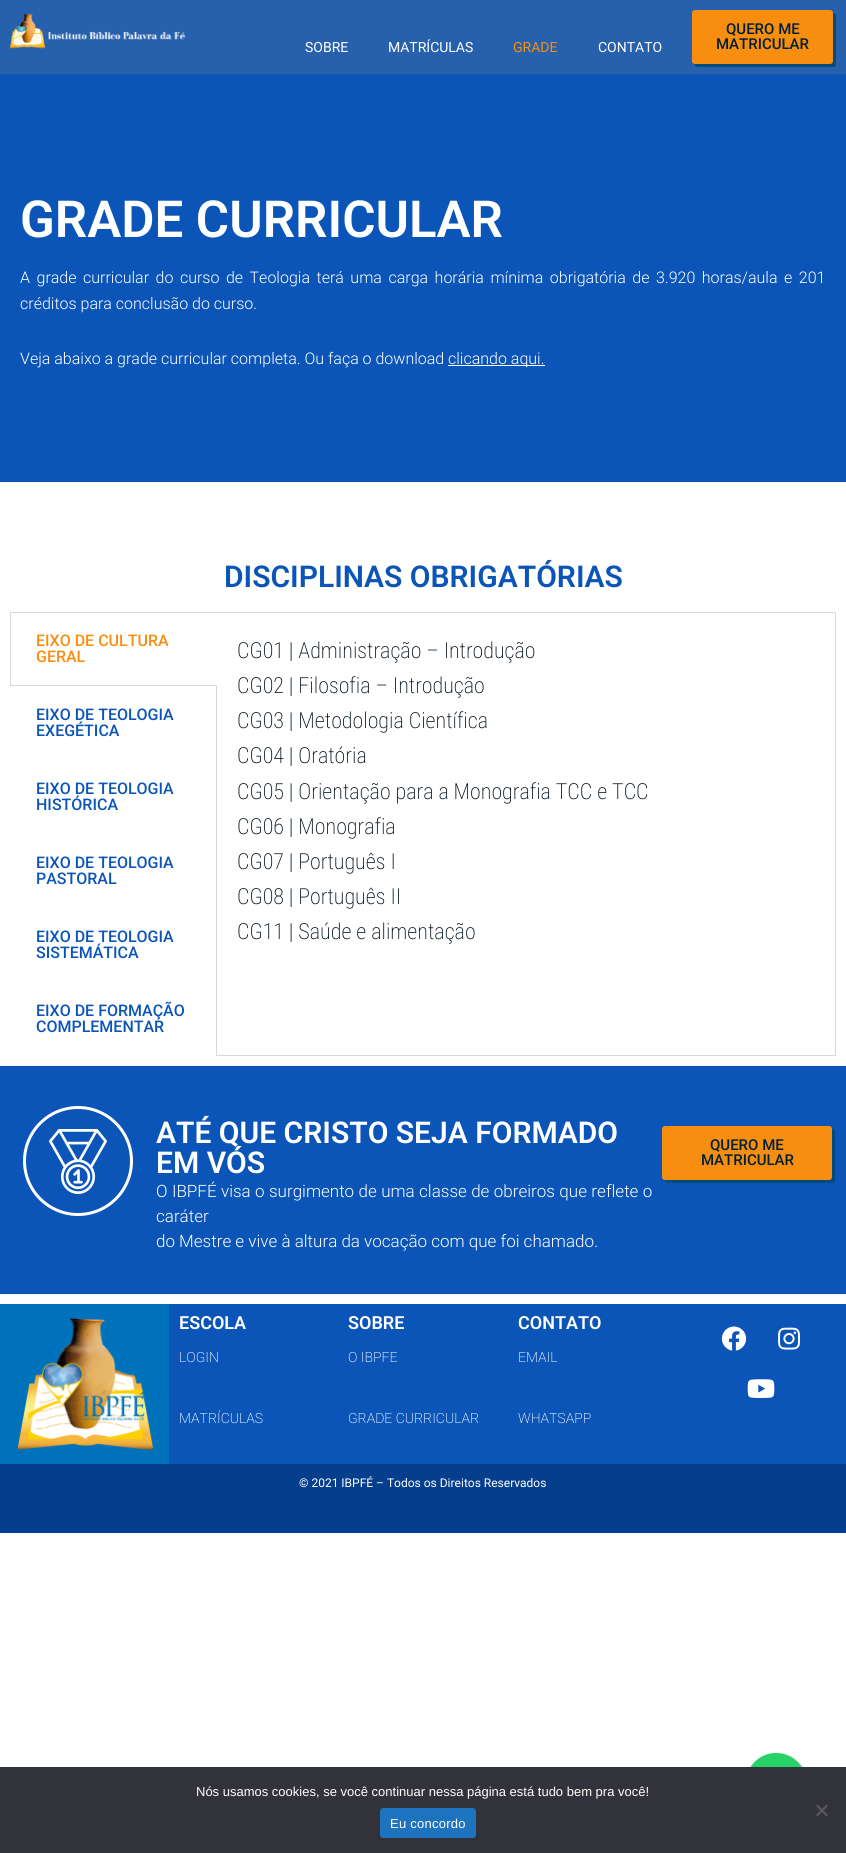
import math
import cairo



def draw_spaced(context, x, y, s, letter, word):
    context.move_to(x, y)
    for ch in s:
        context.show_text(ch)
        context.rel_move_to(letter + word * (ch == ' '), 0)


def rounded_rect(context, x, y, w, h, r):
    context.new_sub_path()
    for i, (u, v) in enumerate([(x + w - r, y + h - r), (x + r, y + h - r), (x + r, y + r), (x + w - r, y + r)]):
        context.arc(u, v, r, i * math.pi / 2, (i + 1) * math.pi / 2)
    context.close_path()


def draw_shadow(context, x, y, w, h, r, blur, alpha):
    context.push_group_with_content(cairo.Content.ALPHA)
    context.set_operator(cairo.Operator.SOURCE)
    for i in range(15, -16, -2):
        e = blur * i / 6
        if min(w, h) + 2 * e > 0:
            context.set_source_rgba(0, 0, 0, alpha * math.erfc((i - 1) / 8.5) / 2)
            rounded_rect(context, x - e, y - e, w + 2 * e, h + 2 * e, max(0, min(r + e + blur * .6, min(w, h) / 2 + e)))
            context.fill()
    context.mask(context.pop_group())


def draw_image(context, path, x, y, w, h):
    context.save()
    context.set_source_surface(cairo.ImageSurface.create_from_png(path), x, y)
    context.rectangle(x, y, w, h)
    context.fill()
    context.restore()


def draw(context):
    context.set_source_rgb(1, 1, 1)
    context.paint()
    context.set_source_rgb(39 / 255, 96 / 255, 172 / 255)
    context.rectangle(0, 0, 846, 74)
    context.fill()
    draw_image(context, "images/1.png", 10, 13, 176, 36)
    context.set_source_rgb(2 / 255, 75 / 255, 125 / 255)
    context.new_path()
    context.move_to(695, 64)
    context.curve_to(695, 66, 696, 67, 698, 67)
    context.line_to(833, 67)
    context.curve_to(835, 67, 836, 66, 836, 64)
    context.line_to(836, 16)
    context.curve_to(836, 14, 835, 13, 833, 13)
    context.line_to(833, 61)
    context.curve_to(833, 63, 832, 64, 830, 64)
    context.close_path()
    context.fill()
    context.set_source_rgb(247 / 255, 142 / 255, 16 / 255)
    rounded_rect(context, 692, 10, 141, 54, 3)
    context.fill()
    context.set_source_rgb(11 / 255, 85 / 255, 184 / 255)
    context.rectangle(0, 74, 846, 408)
    context.fill()
    context.set_source_rgb(1, 1, 1)
    context.rectangle(448, 365, 97, 1)
    context.fill()
    context.set_source_rgb(136 / 255, 136 / 255, 136 / 255)
    draw_shadow(context, 747, 1754, 60, 60, 30, 1, 1)
    context.set_source_rgb(37 / 255, 211 / 255, 102 / 255)
    context.arc(776, 1783, 30, 0, 2 * math.pi)
    context.fill()
    context.set_source_rgb(213 / 255, 216 / 255, 220 / 255)
    context.rectangle(10, 685, 207, 1)
    context.fill()
    context.rectangle(10, 612, 826, 1)
    context.fill()
    context.rectangle(10, 612, 1, 74)
    context.fill()
    context.rectangle(216, 685, 1, 371)
    context.fill()
    context.rectangle(835, 612, 1, 444)
    context.fill()
    context.rectangle(217, 1055, 619, 1)
    context.fill()
    context.set_source_rgb(11 / 255, 85 / 255, 184 / 255)
    context.rectangle(0, 1066, 846, 228)
    context.fill()
    draw_image(context, "images/2.png", 23, 1106, 110, 110)
    context.set_source_rgb(1 / 255, 75 / 255, 126 / 255)
    context.new_path()
    context.move_to(665, 1180)
    context.curve_to(665, 1182, 666, 1183, 668, 1183)
    context.line_to(832, 1183)
    context.curve_to(834, 1183, 835, 1182, 835, 1180)
    context.line_to(835, 1132)
    context.curve_to(835, 1130, 834, 1129, 832, 1129)
    context.line_to(832, 1177)
    context.curve_to(832, 1179, 831, 1180, 829, 1180)
    context.close_path()
    context.fill()
    context.set_source_rgb(247 / 255, 142 / 255, 16 / 255)
    rounded_rect(context, 662, 1126, 170, 54, 3)
    context.fill()
    context.set_source_rgb(11 / 255, 85 / 255, 184 / 255)
    context.rectangle(169, 1304, 677, 160)
    context.fill()
    context.set_source_rgb(0, 114 / 255, 187 / 255)
    context.rectangle(0, 1304, 169, 160)
    context.fill()
    draw_image(context, "images/3.png", 17, 1318, 137, 133)
    draw_image(context, "images/4.png", 721, 1326, 26, 25)
    draw_image(context, "images/5.png", 778, 1327, 22, 23)
    draw_image(context, "images/6.png", 747, 1379, 28, 19)
    context.set_source_rgb(4 / 255, 62 / 255, 141 / 255)
    context.rectangle(0, 1464, 846, 69)
    context.fill()
    context.set_source_rgb(50 / 255, 50 / 255, 58 / 255)
    context.rectangle(0, 1767, 846, 86)
    context.fill()
    context.set_source_rgb(89 / 255, 89 / 255, 93 / 255)
    context.new_path()
    context.move_to(826.5, 1804.5)
    context.line_to(828, 1806)
    context.line_to(817.5, 1816.5)
    context.line_to(816, 1815)
    context.close_path()
    context.fill()
    context.new_path()
    context.move_to(816, 1806)
    context.line_to(817.5, 1804.5)
    context.line_to(828, 1815)
    context.line_to(826.5, 1816.5)
    context.close_path()
    context.fill()
    context.set_source_rgb(30 / 255, 115 / 255, 190 / 255)
    rounded_rect(context, 380, 1808, 96, 30, 3)
    context.fill()
    context.select_font_face("Roboto")
    context.set_font_size(14)
    context.set_source_rgb(1, 1, 1)
    context.move_to(305, 52)
    context.show_text("SOBRE")
    context.move_to(388, 52)
    context.show_text("MATRÍCULAS")
    context.set_source_rgb(247 / 255, 142 / 255, 16 / 255)
    context.move_to(513, 52)
    context.show_text("GRADE")
    context.set_source_rgb(1, 1, 1)
    context.move_to(598, 52)
    context.show_text("CONTATO")
    context.select_font_face("Roboto Medium")
    context.set_font_size(15)
    context.set_source_rgb(1 / 255, 32 / 255, 52 / 255)
    context.move_to(726, 34)
    context.show_text("QUERO ME")
    context.move_to(716, 49)
    context.show_text("MATRICULAR")
    context.select_font_face("Roboto SemiBold")
    context.set_font_size(51)
    context.set_source_rgb(1, 1, 1)
    context.move_to(20, 237)
    context.show_text("GRADE CURRICULAR")
    context.select_font_face("Roboto Light")
    context.set_font_size(16)
    draw_spaced(context, 20, 283, "A grade curricular do curso de Teologia terá uma carga horária mínima obrigatória de 3.920 horas/aula e 201", 0, 2.6)
    context.move_to(20, 309)
    context.show_text("créditos para conclusão do curso.")
    context.move_to(20, 364)
    context.show_text("Veja abaixo a grade curricular completa. Ou faça o download")
    context.move_to(448, 364)
    context.show_text("clicando aqui.")
    context.select_font_face("Roboto SemiBold")
    context.set_font_size(30)
    context.set_source_rgb(11 / 255, 85 / 255, 184 / 255)
    context.move_to(224, 587)
    context.show_text("DISCIPLINAS OBRIGATÓRIAS")
    context.select_font_face("Roboto Medium")
    context.set_font_size(16)
    context.set_source_rgb(247 / 255, 142 / 255, 16 / 255)
    context.move_to(36, 646)
    context.show_text("EIXO DE CULTURA")
    context.move_to(36, 662)
    context.show_text("GERAL")
    context.set_source_rgb(11 / 255, 85 / 255, 184 / 255)
    context.move_to(36, 720)
    context.show_text("EIXO DE TEOLOGIA")
    context.move_to(36, 736)
    context.show_text("EXEGÉTICA")
    context.move_to(36, 794)
    context.show_text("EIXO DE TEOLOGIA")
    context.move_to(36, 810)
    context.show_text("HISTÓRICA")
    context.move_to(36, 868)
    context.show_text("EIXO DE TEOLOGIA")
    context.move_to(36, 884)
    context.show_text("PASTORAL")
    context.move_to(36, 942)
    context.show_text("EIXO DE TEOLOGIA")
    context.move_to(36, 958)
    context.show_text("SISTEMÁTICA")
    context.move_to(36, 1016)
    context.show_text("EIXO DE FORMAÇÃO")
    context.move_to(36, 1032)
    context.show_text("COMPLEMENTAR")
    context.select_font_face("Roboto Condensed ExtraLight")
    context.set_font_size(22)
    context.set_source_rgb(1 / 255, 15 / 255, 24 / 255)
    context.move_to(237, 658)
    context.show_text("CG01 | Administração – Introdução")
    context.move_to(237, 693)
    context.show_text("CG02 | Filosofia – Introdução")
    context.move_to(237, 728)
    context.show_text("CG03 | Metodologia Científica")
    context.move_to(237, 763)
    context.show_text("CG04 | Oratória")
    context.move_to(237, 799)
    context.show_text("CG05 | Orientação para a Monografia TCC e TCC")
    context.move_to(237, 834)
    context.show_text("CG06 | Monografia")
    context.move_to(237, 869)
    context.show_text("CG07 | Português I")
    context.move_to(237, 904)
    context.show_text("CG08 | Português II")
    context.move_to(237, 939)
    context.show_text("CG11 | Saúde e alimentação")
    context.select_font_face("Roboto SemiBold")
    context.set_font_size(30)
    context.set_source_rgb(1, 1, 1)
    context.move_to(156, 1143)
    context.show_text("ATÉ QUE CRISTO SEJA FORMADO")
    context.move_to(156, 1173)
    context.show_text("EM VÓS")
    context.select_font_face("Roboto Light")
    context.set_font_size(17)
    draw_spaced(context, 156, 1197, "O IBPFÉ visa o surgimento de uma classe de obreiros que reflete o", 0, 0.25)
    context.move_to(156, 1222)
    context.show_text("caráter")
    context.move_to(156, 1247)
    context.show_text("do Mestre e vive à altura da vocação com que foi chamado.")
    context.select_font_face("Roboto Medium")
    context.set_font_size(15)
    context.set_source_rgb(1 / 255, 32 / 255, 52 / 255)
    context.move_to(710, 1150)
    context.show_text("QUERO ME")
    context.move_to(701, 1165)
    context.show_text("MATRICULAR")
    context.select_font_face("Roboto SemiBold")
    context.set_font_size(18)
    context.set_source_rgb(1, 1, 1)
    context.move_to(179, 1329)
    context.show_text("ESCOLA")
    context.select_font_face("Roboto ExtraLight")
    context.set_font_size(14)
    context.move_to(179, 1362)
    context.show_text("LOGIN")
    context.move_to(179, 1423)
    context.show_text("MATRÍCULAS")
    context.select_font_face("Roboto SemiBold")
    context.set_font_size(18)
    context.move_to(348, 1329)
    context.show_text("SOBRE")
    context.select_font_face("Roboto ExtraLight")
    context.set_font_size(14)
    context.move_to(348, 1362)
    context.show_text("O IBPFE")
    context.move_to(348, 1423)
    context.show_text("GRADE CURRICULAR")
    context.select_font_face("Roboto SemiBold")
    context.set_font_size(18)
    context.move_to(518, 1329)
    context.show_text("CONTATO")
    context.select_font_face("Roboto ExtraLight")
    context.set_font_size(14)
    context.move_to(518, 1362)
    context.show_text("EMAIL")
    context.move_to(518, 1423)
    context.show_text("WHATSAPP")
    context.select_font_face("Roboto")
    context.set_font_size(12)
    context.move_to(299, 1487)
    context.show_text("© 2021 IBPFÉ – Todos os Direitos Reservados")
    context.select_font_face("Liberation Sans")
    context.set_font_size(13)
    context.move_to(196, 1796)
    context.show_text("Nós usamos cookies, se você continuar nessa página está tudo bem pra você!")
    draw_spaced(context, 390, 1828, "Eu concordo", 0.25, 0)


surface = cairo.ImageSurface(cairo.Format.RGB24, 846, 1853)
context = cairo.Context(surface)
options = cairo.FontOptions()
options.set_hint_metrics(cairo.HintMetrics.OFF)
options.set_hint_style(cairo.HintStyle.NONE)
context.set_font_options(options)
context.set_miter_limit(4)
draw(context)
surface.write_to_png("out.png")
